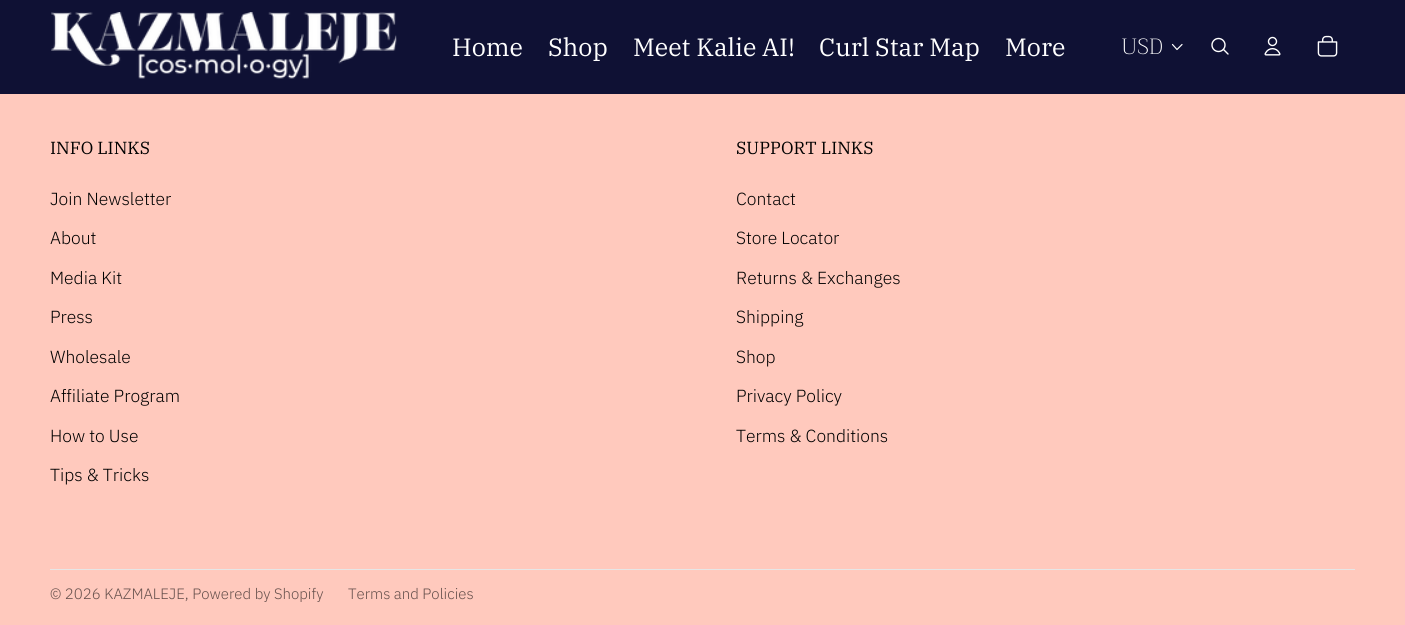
import math
import cairo



def draw_image(context, path, x, y, w, h):
    context.save()
    context.set_source_surface(cairo.ImageSurface.create_from_png(path), x, y)
    context.rectangle(x, y, w, h)
    context.fill()
    context.restore()


def draw(context):
    context.set_source_rgb(1, 201 / 255, 189 / 255)
    context.paint()
    context.set_source_rgb(15 / 255, 17 / 255, 52 / 255)
    context.rectangle(0, 0, 1405, 94)
    context.fill()
    draw_image(context, "images/1.png", 51, 12, 346, 67)
    context.new_path()
    context.move_to(1182, 44.5)
    context.line_to(1177, 49.5)
    context.line_to(1172.5, 44.5)
    context.set_source_rgb(1, 1, 1)
    context.set_line_width(1.2)
    context.set_line_cap(cairo.LineCap.ROUND)
    context.set_line_join(cairo.LineJoin.ROUND)
    context.stroke()
    context.arc(1218.5, 45, 6.5, 0, 2 * math.pi)
    context.set_line_width(1.4)
    context.set_line_cap(cairo.LineCap.BUTT)
    context.set_line_join(cairo.LineJoin.MITER)
    context.stroke()
    context.new_path()
    context.move_to(1223.5, 49.5)
    context.line_to(1228, 54)
    context.set_line_cap(cairo.LineCap.ROUND)
    context.set_line_join(cairo.LineJoin.ROUND)
    context.stroke()
    draw_image(context, "images/2.png", 1264, 36, 17, 20)
    draw_image(context, "images/3.png", 1317, 35, 21, 22)
    context.set_source_rgb(230 / 255, 230 / 255, 230 / 255)
    context.rectangle(50, 569, 1305, 1)
    context.fill()
    context.select_font_face("IBM Plex Serif")
    context.set_font_size(25)
    context.set_source_rgb(1, 1, 1)
    context.move_to(452, 56)
    context.show_text("Home")
    context.move_to(548, 56)
    context.show_text("Shop")
    context.move_to(633, 56)
    context.show_text("Meet Kalie AI!")
    context.move_to(819, 56)
    context.show_text("Curl Star Map")
    context.move_to(1005, 56)
    context.show_text("More")
    context.select_font_face("Trirong Light")
    context.set_font_size(22)
    context.move_to(1121, 54)
    context.show_text("USD")
    context.select_font_face("IBM Plex Serif")
    context.set_font_size(17.5)
    context.set_source_rgb(0, 0, 0)
    context.move_to(50, 154)
    context.show_text("INFO LINKS")
    context.select_font_face("IBM Plex Sans Light")
    context.move_to(50, 205)
    context.show_text("Join Newsletter")
    context.move_to(50, 244)
    context.show_text("About")
    context.move_to(50, 284)
    context.show_text("Media Kit")
    context.move_to(50, 323)
    context.show_text("Press")
    context.move_to(50, 363)
    context.show_text("Wholesale")
    context.move_to(50, 402)
    context.show_text("Affiliate Program")
    context.move_to(50, 442)
    context.show_text("How to Use")
    context.move_to(50, 481)
    context.show_text("Tips & Tricks")
    context.select_font_face("IBM Plex Serif")
    context.move_to(736, 154)
    context.show_text("SUPPORT LINKS")
    context.select_font_face("IBM Plex Sans Light")
    context.move_to(736, 205)
    context.show_text("Contact")
    context.move_to(736, 244)
    context.show_text("Store Locator")
    context.move_to(736, 284)
    context.show_text("Returns & Exchanges")
    context.move_to(736, 323)
    context.show_text("Shipping")
    context.move_to(736, 363)
    context.show_text("Shop")
    context.move_to(736, 402)
    context.show_text("Privacy Policy")
    context.move_to(736, 442)
    context.show_text("Terms & Conditions")
    context.set_font_size(15)
    context.set_source_rgb(102 / 255, 80 / 255, 76 / 255)
    context.move_to(50, 599)
    context.show_text("© 2026 KAZMALEJE, Powered by Shopify")
    context.move_to(348, 599)
    context.show_text("Terms and Policies")


surface = cairo.ImageSurface(cairo.Format.RGB24, 1405, 625)
context = cairo.Context(surface)
options = cairo.FontOptions()
options.set_hint_metrics(cairo.HintMetrics.OFF)
options.set_hint_style(cairo.HintStyle.NONE)
context.set_font_options(options)
context.set_miter_limit(4)
draw(context)
surface.write_to_png("out.png")
